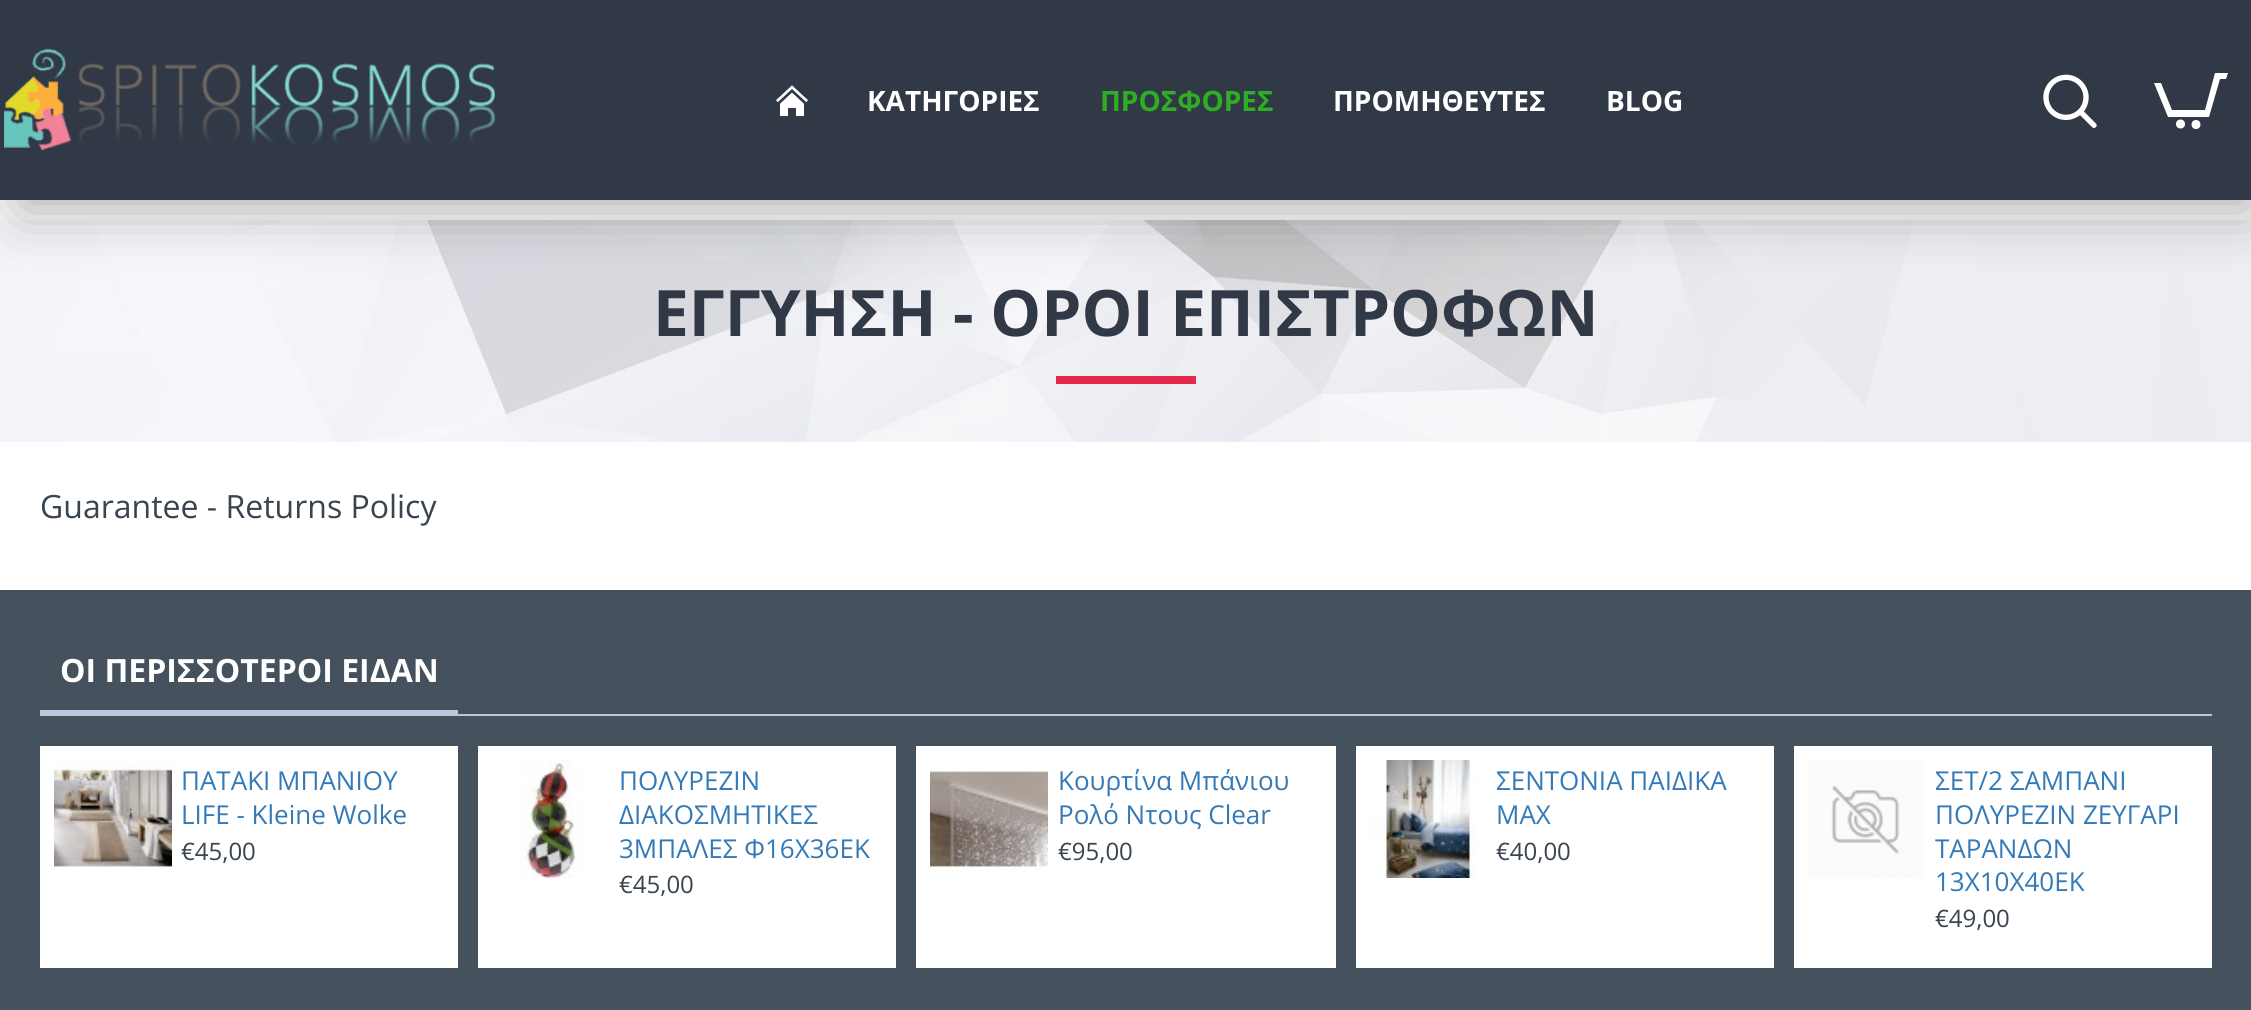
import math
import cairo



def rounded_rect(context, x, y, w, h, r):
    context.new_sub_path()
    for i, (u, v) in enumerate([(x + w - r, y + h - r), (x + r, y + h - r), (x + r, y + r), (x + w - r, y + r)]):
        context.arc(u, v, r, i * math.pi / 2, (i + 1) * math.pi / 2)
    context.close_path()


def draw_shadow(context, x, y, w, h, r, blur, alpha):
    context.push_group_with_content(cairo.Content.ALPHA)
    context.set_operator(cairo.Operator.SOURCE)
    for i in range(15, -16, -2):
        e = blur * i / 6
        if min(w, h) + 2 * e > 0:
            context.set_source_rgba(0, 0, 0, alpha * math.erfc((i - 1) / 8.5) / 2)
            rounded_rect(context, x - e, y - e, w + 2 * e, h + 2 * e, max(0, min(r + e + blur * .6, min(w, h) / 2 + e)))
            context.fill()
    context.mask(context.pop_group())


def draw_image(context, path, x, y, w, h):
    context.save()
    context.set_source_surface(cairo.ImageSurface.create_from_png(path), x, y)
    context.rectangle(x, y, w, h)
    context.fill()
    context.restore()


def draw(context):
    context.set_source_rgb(1, 1, 1)
    context.paint()
    context.set_source_rgb(250 / 255, 250 / 255, 250 / 255)
    context.rectangle(0, 200, 2251, 20)
    context.fill()
    draw_image(context, "images/4.png", 0, 220, 2251, 222)
    context.set_source_rgb(0, 0, 0)
    draw_shadow(context, 20, -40, 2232, 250, 0, 30, 0.3)
    context.set_source_rgb(49 / 255, 56 / 255, 70 / 255)
    context.rectangle(0, 0, 2251, 200)
    context.fill()
    draw_image(context, "images/1.png", 4, 48, 491, 103)
    draw_image(context, "images/2.png", 776, 85, 32, 31)
    draw_image(context, "images/3.png", 2043, 74, 54, 54)
    context.set_source_rgb(1, 1, 1)
    context.new_path()
    context.move_to(2185, 124)
    context.curve_to(2185, 130, 2176, 130, 2176, 124)
    context.curve_to(2176, 118, 2185, 118, 2185, 124)
    context.close_path()
    context.move_to(2196, 120)
    context.curve_to(2190, 120, 2190, 129, 2196, 129)
    context.curve_to(2202, 129, 2202, 120, 2196, 120)
    context.close_path()
    context.move_to(2215, 73)
    context.line_to(2205, 110)
    context.line_to(2172, 110)
    context.line_to(2161, 83)
    context.line_to(2154, 83)
    context.line_to(2168, 117)
    context.line_to(2209, 117)
    context.line_to(2220, 79)
    context.line_to(2226, 79)
    context.line_to(2228, 73)
    context.close_path()
    context.fill()
    context.set_source_rgb(231 / 255, 40 / 255, 77 / 255)
    context.rectangle(1056, 376, 140, 8)
    context.fill()
    context.set_source_rgb(69 / 255, 82 / 255, 94 / 255)
    context.rectangle(0, 590, 2251, 420)
    context.fill()
    context.set_source_rgb(187 / 255, 198 / 255, 221 / 255)
    context.rectangle(40, 714, 2172, 2)
    context.fill()
    context.rectangle(40, 710, 418, 4)
    context.fill()
    context.set_source_rgb(1, 1, 1)
    context.rectangle(40, 746, 418, 222)
    context.fill()
    draw_image(context, "images/5.png", 54, 760, 118, 108)
    context.rectangle(478, 746, 418, 222)
    context.fill()
    draw_image(context, "images/6.png", 519, 760, 65, 118)
    context.rectangle(916, 746, 420, 222)
    context.fill()
    draw_image(context, "images/7.png", 930, 769, 118, 100)
    context.rectangle(1356, 746, 418, 222)
    context.fill()
    draw_image(context, "images/8.png", 1370, 760, 106, 118)
    context.rectangle(1794, 746, 418, 222)
    context.fill()
    draw_image(context, "images/9.png", 1808, 760, 116, 118)
    context.select_font_face("Open Sans", cairo.FontSlant.NORMAL, cairo.FontWeight.BOLD)
    context.set_font_size(28)
    context.move_to(867, 111)
    context.show_text("ΚΑΤΗΓΟΡΙΕΣ")
    context.set_source_rgb(46 / 255, 175 / 255, 35 / 255)
    context.move_to(1100, 111)
    context.show_text("ΠΡΟΣΦΟΡΕΣ")
    context.set_source_rgb(1, 1, 1)
    context.move_to(1333, 111)
    context.show_text("ΠΡΟΜΗΘΕΥΤΕΣ")
    context.move_to(1606, 111)
    context.show_text("BLOG")
    context.set_font_size(64)
    context.set_source_rgb(49 / 255, 56 / 255, 70 / 255)
    context.move_to(653, 336)
    context.show_text("ΕΓΓΥΗΣΗ - ΟΡΟΙ ΕΠΙΣΤΡΟΦΩΝ")
    context.select_font_face("Open Sans")
    context.set_font_size(32)
    context.set_source_rgb(56 / 255, 68 / 255, 79 / 255)
    context.move_to(40, 518)
    context.show_text("Guarantee - Returns Policy")
    context.select_font_face("Open Sans", cairo.FontSlant.NORMAL, cairo.FontWeight.BOLD)
    context.set_source_rgb(1, 1, 1)
    context.move_to(60, 682)
    context.show_text("ΟΙ ΠΕΡΙΣΣΟΤΕΡΟΙ ΕΙΔΑΝ")
    context.select_font_face("Open Sans")
    context.set_font_size(26)
    context.set_source_rgb(51 / 255, 122 / 255, 183 / 255)
    context.move_to(181, 790)
    context.show_text("ΠΑΤΑΚΙ ΜΠΑΝΙΟΥ")
    context.move_to(181, 824)
    context.show_text("LIFE - Kleine Wolke")
    context.set_font_size(24)
    context.set_source_rgb(56 / 255, 68 / 255, 79 / 255)
    context.move_to(181, 860)
    context.show_text("€45,00")
    context.set_font_size(26)
    context.set_source_rgb(51 / 255, 122 / 255, 183 / 255)
    context.move_to(619, 790)
    context.show_text("ΠΟΛΥΡΕΖΙΝ")
    context.move_to(619, 824)
    context.show_text("ΔΙΑΚΟΣΜΗΤΙΚΕΣ")
    context.move_to(619, 858)
    context.show_text("3ΜΠΑΛΕΣ Φ16Χ36ΕΚ")
    context.set_font_size(24)
    context.set_source_rgb(56 / 255, 68 / 255, 79 / 255)
    context.move_to(619, 893)
    context.show_text("€45,00")
    context.set_font_size(26)
    context.set_source_rgb(51 / 255, 122 / 255, 183 / 255)
    context.move_to(1058, 790)
    context.show_text("Κουρτίνα Μπάνιου")
    context.move_to(1058, 824)
    context.show_text("Ρολό Ντους Clear")
    context.set_font_size(24)
    context.set_source_rgb(56 / 255, 68 / 255, 79 / 255)
    context.move_to(1058, 860)
    context.show_text("€95,00")
    context.set_font_size(26)
    context.set_source_rgb(51 / 255, 122 / 255, 183 / 255)
    context.move_to(1496, 790)
    context.show_text("ΣΕΝΤΟΝΙΑ ΠΑΙΔΙΚΑ")
    context.move_to(1496, 824)
    context.show_text("MAX")
    context.set_font_size(24)
    context.set_source_rgb(56 / 255, 68 / 255, 79 / 255)
    context.move_to(1496, 860)
    context.show_text("€40,00")
    context.set_font_size(26)
    context.set_source_rgb(51 / 255, 122 / 255, 183 / 255)
    context.move_to(1935, 790)
    context.show_text("ΣΕΤ/2 ΣΑΜΠΑΝΙ")
    context.move_to(1935, 824)
    context.show_text("ΠΟΛΥΡΕΖΙΝ ΖΕΥΓΑΡΙ")
    context.move_to(1935, 858)
    context.show_text("ΤΑΡΑΝΔΩΝ")
    context.move_to(1935, 891)
    context.show_text("13Χ10Χ40ΕΚ")
    context.set_font_size(24)
    context.set_source_rgb(56 / 255, 68 / 255, 79 / 255)
    context.move_to(1935, 927)
    context.show_text("€49,00")


surface = cairo.ImageSurface(cairo.Format.RGB24, 2251, 1010)
context = cairo.Context(surface)
options = cairo.FontOptions()
options.set_hint_metrics(cairo.HintMetrics.OFF)
options.set_hint_style(cairo.HintStyle.NONE)
context.set_font_options(options)
context.set_miter_limit(4)
draw(context)
surface.write_to_png("out.png")
